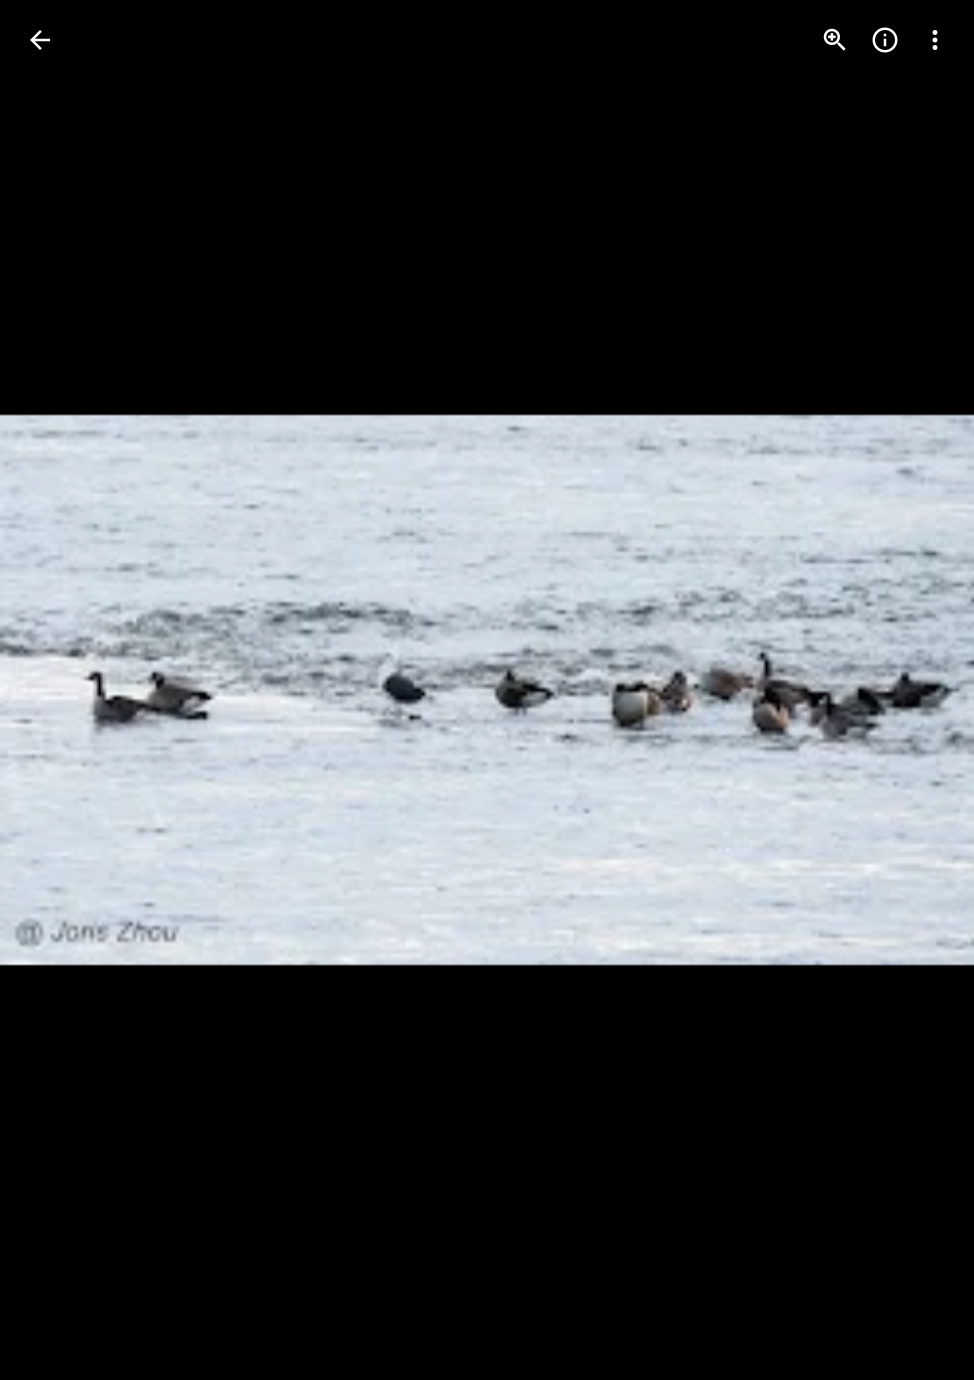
import math
import cairo



def draw_image(context, path, x, y, w, h):
    context.save()
    context.set_source_surface(cairo.ImageSurface.create_from_png(path), x, y)
    context.rectangle(x, y, w, h)
    context.fill()
    context.restore()


def draw(context):
    context.set_source_rgb(0, 0, 0)
    context.paint()
    draw_image(context, "images/1.png", 30, 30, 20, 20)
    draw_image(context, "images/2.png", 823, 28, 23, 23)
    draw_image(context, "images/3.png", 872, 27, 26, 26)
    draw_image(context, "images/4.png", 932, 30, 6, 20)
    draw_image(context, "images/5.png", 0, 414, 974, 552)


surface = cairo.ImageSurface(cairo.Format.RGB24, 974, 1380)
context = cairo.Context(surface)
options = cairo.FontOptions()
options.set_hint_metrics(cairo.HintMetrics.OFF)
options.set_hint_style(cairo.HintStyle.NONE)
context.set_font_options(options)
context.set_miter_limit(4)
draw(context)
surface.write_to_png("out.png")
